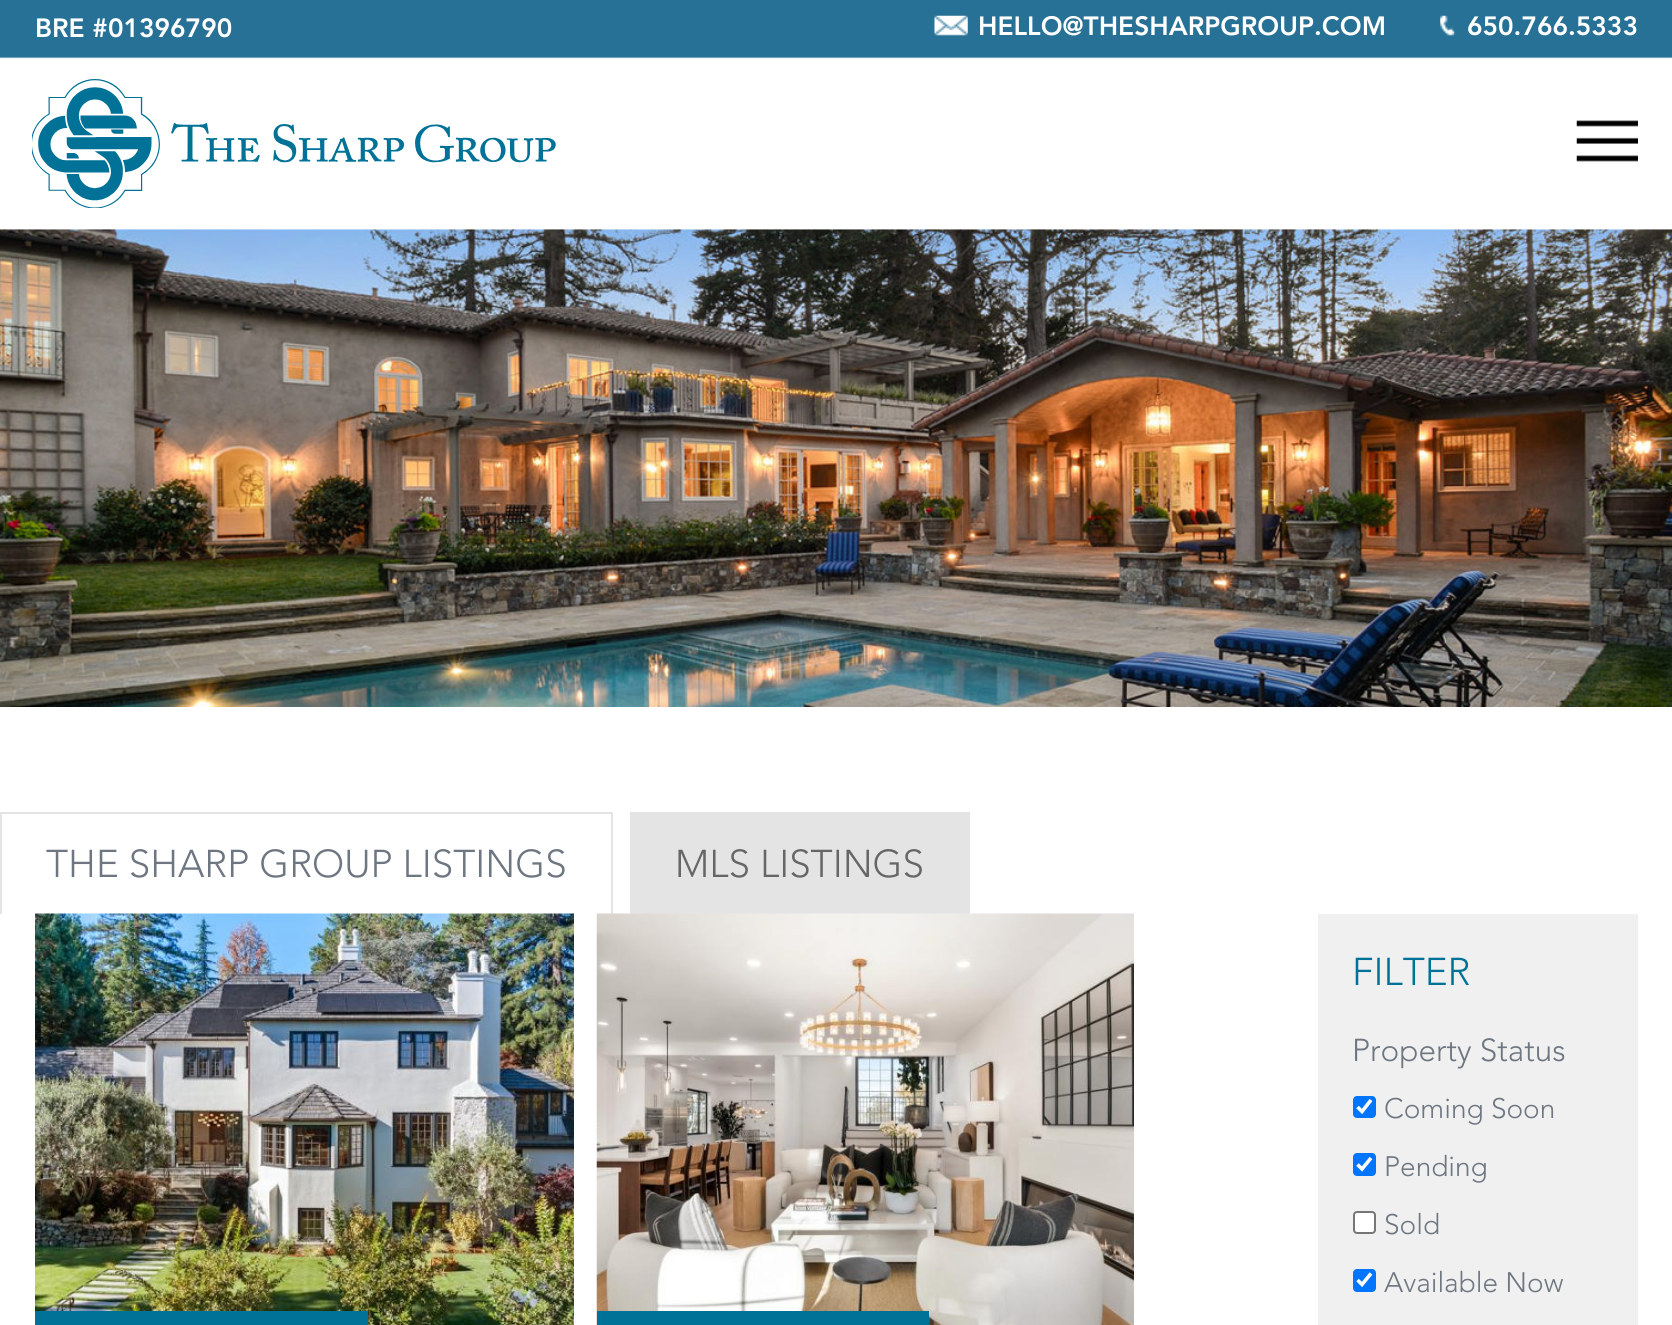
import math
import cairo



def rounded_rect(context, x, y, w, h, r):
    context.new_sub_path()
    for i, (u, v) in enumerate([(x + w - r, y + h - r), (x + r, y + h - r), (x + r, y + r), (x + w - r, y + r)]):
        context.arc(u, v, r, i * math.pi / 2, (i + 1) * math.pi / 2)
    context.close_path()


def draw_image(context, path, x, y, w, h):
    context.save()
    context.set_source_surface(cairo.ImageSurface.create_from_png(path), x, y)
    context.rectangle(x, y, w, h)
    context.fill()
    context.restore()


def draw(context):
    context.set_source_rgb(1, 1, 1)
    context.paint()
    draw_image(context, "images/1.png", 0, 0, 1672, 59)
    draw_image(context, "images/2.png", 934, 15, 34, 21)
    draw_image(context, "images/3.png", 1440, 15, 15, 21)
    draw_image(context, "images/4.png", 32, 79, 524, 129)
    draw_image(context, "images/5.png", 1576, 120, 62, 42)
    draw_image(context, "images/6.png", 0, 229, 1672, 478)
    context.set_source_rgb(228 / 255, 228 / 255, 229 / 255)
    context.rectangle(0, 812, 613, 2)
    context.fill()
    context.rectangle(611, 812, 2, 102)
    context.fill()
    context.rectangle(0, 812, 2, 102)
    context.fill()
    context.rectangle(630, 812, 340, 102)
    context.fill()
    draw_image(context, "images/7.png", 35, 913, 539, 412)
    context.set_source_rgb(0, 114 / 255, 151 / 255)
    context.rectangle(35, 1311, 333, 14)
    context.fill()
    draw_image(context, "images/8.png", 596, 913, 538, 412)
    context.rectangle(597, 1311, 332, 14)
    context.fill()
    context.set_source_rgb(240 / 255, 240 / 255, 240 / 255)
    context.rectangle(1318, 914, 320, 411)
    context.fill()
    context.set_source_rgb(0, 117 / 255, 1)
    rounded_rect(context, 1353, 1096, 23, 22, 4)
    context.fill()
    context.new_path()
    context.move_to(1357.5, 1107)
    context.line_to(1362, 1111.5)
    context.line_to(1371, 1100)
    context.set_source_rgb(1, 1, 1)
    context.set_line_width(3.6)
    context.stroke()
    context.set_source_rgb(0, 117 / 255, 1)
    rounded_rect(context, 1353, 1153, 23, 23, 4)
    context.fill()
    context.new_path()
    context.move_to(1357.5, 1164.5)
    context.line_to(1362, 1169)
    context.line_to(1371, 1158)
    context.set_source_rgb(1, 1, 1)
    context.stroke()
    rounded_rect(context, 1354, 1212, 21, 21, 3)
    context.fill_preserve()
    context.set_source_rgb(118 / 255, 118 / 255, 118 / 255)
    context.set_line_width(2)
    context.stroke()
    context.set_source_rgb(0, 117 / 255, 1)
    rounded_rect(context, 1353, 1269, 23, 23, 4)
    context.fill()
    context.new_path()
    context.move_to(1357.5, 1280)
    context.line_to(1362, 1284.5)
    context.line_to(1371, 1273.5)
    context.set_source_rgb(1, 1, 1)
    context.set_line_width(3.6)
    context.stroke()
    context.select_font_face("Avenir Black")
    context.set_font_size(26.25)
    context.move_to(35, 37)
    context.show_text("BRE #01396790")
    context.move_to(978, 35)
    context.show_text("HELLO@THESHARPGROUP.COM")
    context.move_to(1467, 35)
    context.show_text("650.766.5333")
    context.select_font_face("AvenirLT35 Light")
    context.set_font_size(38.5)
    context.set_source_rgb(110 / 255, 118 / 255, 129 / 255)
    context.move_to(46, 877)
    context.show_text("THE SHARP GROUP LISTINGS")
    context.set_source_rgb(102 / 255, 102 / 255, 102 / 255)
    context.move_to(675, 877)
    context.show_text("MLS LISTINGS")
    context.set_source_rgb(0, 114 / 255, 151 / 255)
    context.move_to(1352, 985)
    context.show_text("FILTER")
    context.set_font_size(31.5)
    context.set_source_rgb(110 / 255, 118 / 255, 129 / 255)
    context.move_to(1352, 1061)
    context.show_text("Property Status")
    context.set_font_size(28)
    context.move_to(1384, 1118)
    context.show_text("Coming Soon")
    context.move_to(1384, 1176)
    context.show_text("Pending")
    context.move_to(1384, 1234)
    context.show_text("Sold")
    context.move_to(1384, 1292)
    context.show_text("Available Now")


surface = cairo.ImageSurface(cairo.Format.RGB24, 1672, 1325)
context = cairo.Context(surface)
options = cairo.FontOptions()
options.set_hint_metrics(cairo.HintMetrics.OFF)
options.set_hint_style(cairo.HintStyle.NONE)
context.set_font_options(options)
context.set_miter_limit(4)
draw(context)
surface.write_to_png("out.png")
